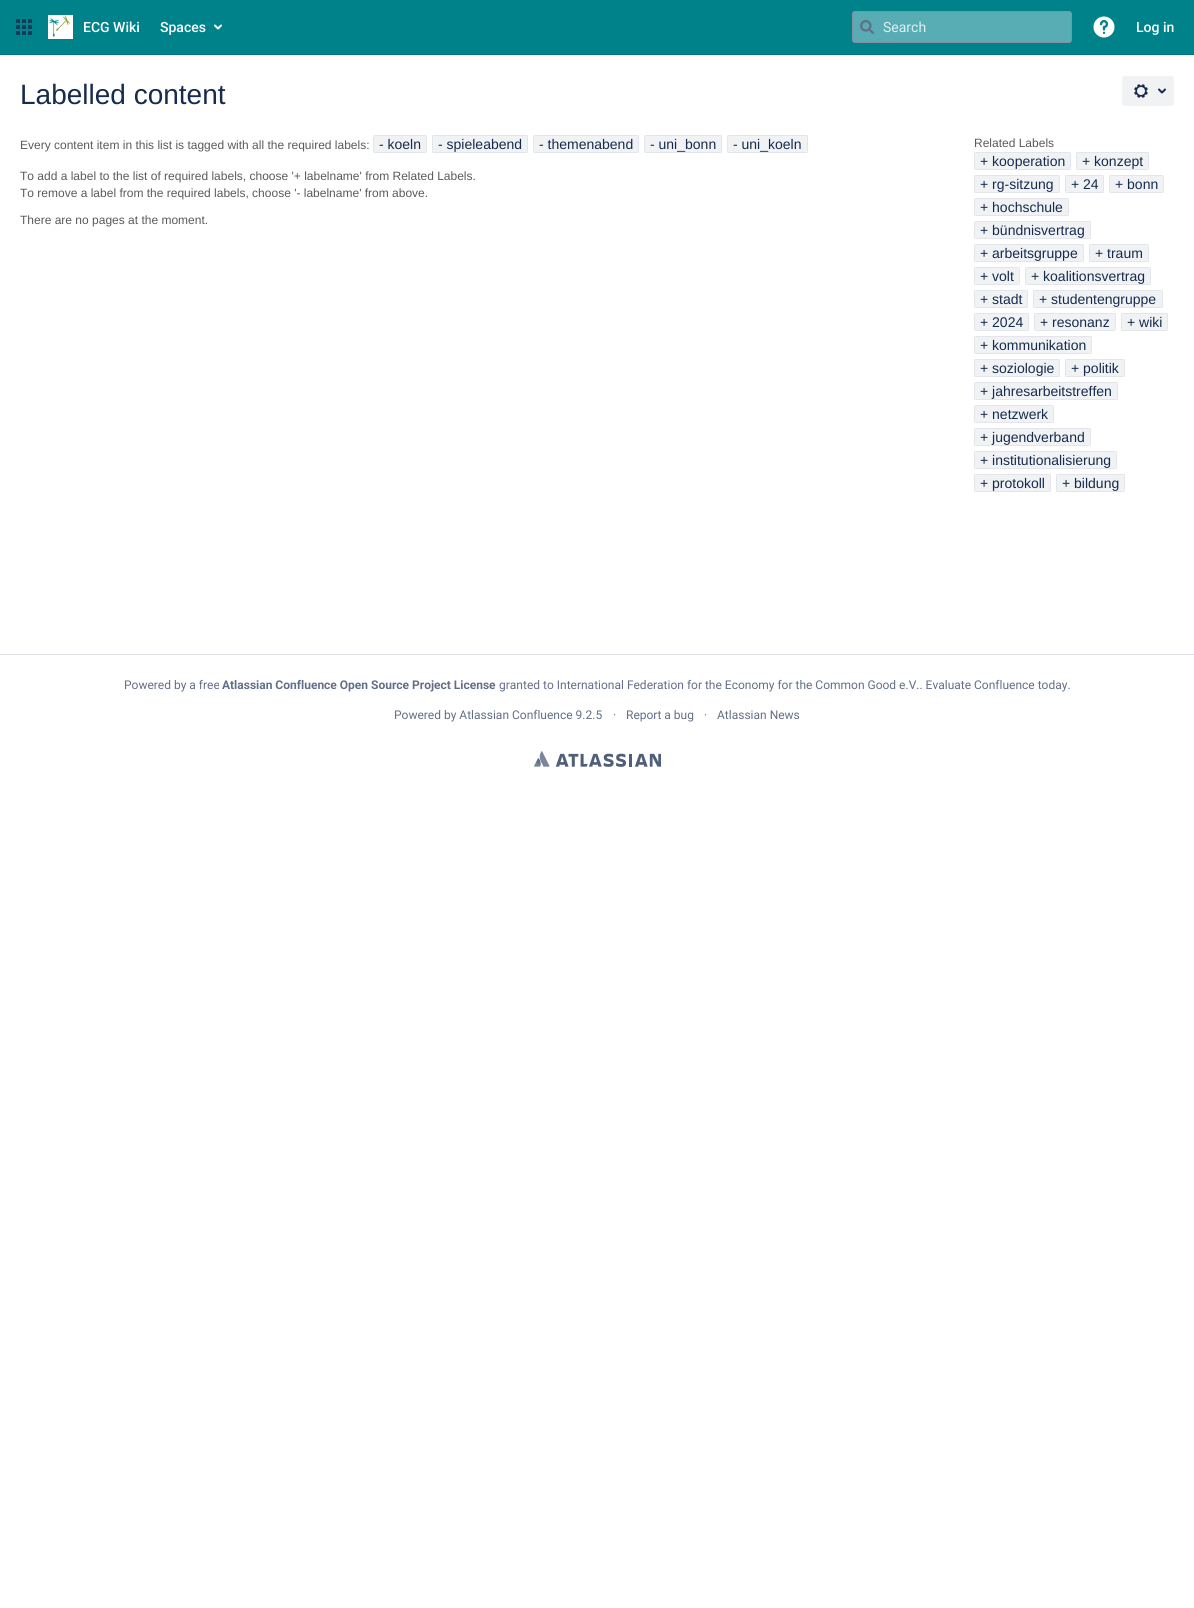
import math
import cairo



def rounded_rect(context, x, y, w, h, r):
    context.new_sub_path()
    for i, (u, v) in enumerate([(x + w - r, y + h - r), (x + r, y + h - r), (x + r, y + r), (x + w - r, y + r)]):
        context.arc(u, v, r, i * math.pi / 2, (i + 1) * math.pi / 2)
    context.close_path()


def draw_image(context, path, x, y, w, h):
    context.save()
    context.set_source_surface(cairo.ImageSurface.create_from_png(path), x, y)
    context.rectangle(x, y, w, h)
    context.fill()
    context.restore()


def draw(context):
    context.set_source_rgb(1, 1, 1)
    context.paint()
    context.set_source_rgb(0, 130 / 255, 139 / 255)
    context.rectangle(0, 0, 1194, 54)
    context.fill()
    context.set_source_rgb(1 / 255, 116 / 255, 129 / 255)
    context.rectangle(0, 54, 1194, 1)
    context.fill()
    draw_image(context, "images/1.png", 16, 19, 16, 16)
    draw_image(context, "images/2.png", 48, 15, 25, 24)
    draw_image(context, "images/3.png", 214, 24, 8, 6)
    context.set_source_rgb(87 / 255, 173 / 255, 179 / 255)
    rounded_rect(context, 852.5, 11.5, 219, 31, 2.5)
    context.fill_preserve()
    context.set_source_rgb(133 / 255, 144 / 255, 162 / 255)
    context.set_line_width(1)
    context.stroke()
    draw_image(context, "images/4.png", 860, 20, 14, 14)
    draw_image(context, "images/5.png", 1093, 16, 22, 22)
    context.set_source_rgb(221 / 255, 224 / 255, 229 / 255)
    context.rectangle(0, 654, 1194, 1)
    context.fill()
    context.set_source_rgb(240 / 255, 242 / 255, 244 / 255)
    rounded_rect(context, 1122, 76, 52, 30, 3)
    context.fill()
    draw_image(context, "images/6.png", 1134, 84, 14, 14)
    draw_image(context, "images/7.png", 1158, 88, 8, 6)
    rounded_rect(context, 373, 135, 54, 18, 3)
    context.fill()
    context.rectangle(373.5, 135.5, 53, 17)
    context.set_source_rgba(9 / 255, 30 / 255, 66 / 255, 0.06)
    context.stroke()
    context.set_source_rgb(240 / 255, 242 / 255, 244 / 255)
    rounded_rect(context, 432, 135, 96, 18, 3)
    context.fill()
    context.rectangle(432.5, 135.5, 95, 17)
    context.set_source_rgba(9 / 255, 30 / 255, 66 / 255, 0.06)
    context.stroke()
    context.set_source_rgb(240 / 255, 242 / 255, 244 / 255)
    rounded_rect(context, 533, 135, 106, 18, 3)
    context.fill()
    context.rectangle(533.5, 135.5, 105, 17)
    context.set_source_rgba(9 / 255, 30 / 255, 66 / 255, 0.06)
    context.stroke()
    context.set_source_rgb(240 / 255, 242 / 255, 244 / 255)
    rounded_rect(context, 644, 135, 78, 18, 3)
    context.fill()
    context.rectangle(644.5, 135.5, 77, 17)
    context.set_source_rgba(9 / 255, 30 / 255, 66 / 255, 0.06)
    context.stroke()
    context.set_source_rgb(240 / 255, 242 / 255, 244 / 255)
    rounded_rect(context, 727, 135, 81, 18, 3)
    context.fill()
    context.rectangle(727.5, 135.5, 80, 17)
    context.set_source_rgba(9 / 255, 30 / 255, 66 / 255, 0.06)
    context.stroke()
    context.set_source_rgb(240 / 255, 242 / 255, 244 / 255)
    rounded_rect(context, 974, 152, 97, 18, 3)
    context.fill()
    context.rectangle(974.5, 152.5, 96, 17)
    context.set_source_rgba(9 / 255, 30 / 255, 66 / 255, 0.06)
    context.stroke()
    context.set_source_rgb(240 / 255, 242 / 255, 244 / 255)
    rounded_rect(context, 1076, 152, 73, 18, 3)
    context.fill()
    context.rectangle(1076.5, 152.5, 72, 17)
    context.set_source_rgba(9 / 255, 30 / 255, 66 / 255, 0.06)
    context.stroke()
    context.set_source_rgb(240 / 255, 242 / 255, 244 / 255)
    rounded_rect(context, 974, 175, 86, 18, 3)
    context.fill()
    context.rectangle(974.5, 175.5, 85, 17)
    context.set_source_rgba(9 / 255, 30 / 255, 66 / 255, 0.06)
    context.stroke()
    context.set_source_rgb(240 / 255, 242 / 255, 244 / 255)
    rounded_rect(context, 1065, 175, 39, 18, 3)
    context.fill()
    context.rectangle(1065.5, 175.5, 38, 17)
    context.set_source_rgba(9 / 255, 30 / 255, 66 / 255, 0.06)
    context.stroke()
    context.set_source_rgb(240 / 255, 242 / 255, 244 / 255)
    rounded_rect(context, 1109, 175, 55, 18, 3)
    context.fill()
    context.rectangle(1109.5, 175.5, 54, 17)
    context.set_source_rgba(9 / 255, 30 / 255, 66 / 255, 0.06)
    context.stroke()
    context.set_source_rgb(240 / 255, 242 / 255, 244 / 255)
    rounded_rect(context, 974, 198, 95, 18, 3)
    context.fill()
    context.rectangle(974.5, 198.5, 94, 17)
    context.set_source_rgba(9 / 255, 30 / 255, 66 / 255, 0.06)
    context.stroke()
    context.set_source_rgb(240 / 255, 242 / 255, 244 / 255)
    rounded_rect(context, 974, 221, 117, 18, 3)
    context.fill()
    context.rectangle(974.5, 221.5, 116, 17)
    context.set_source_rgba(9 / 255, 30 / 255, 66 / 255, 0.06)
    context.stroke()
    context.set_source_rgb(240 / 255, 242 / 255, 244 / 255)
    rounded_rect(context, 974, 244, 110, 18, 3)
    context.fill()
    context.rectangle(974.5, 244.5, 109, 17)
    context.set_source_rgba(9 / 255, 30 / 255, 66 / 255, 0.06)
    context.stroke()
    context.set_source_rgb(240 / 255, 242 / 255, 244 / 255)
    rounded_rect(context, 1089, 244, 60, 18, 3)
    context.fill()
    context.rectangle(1089.5, 244.5, 59, 17)
    context.set_source_rgba(9 / 255, 30 / 255, 66 / 255, 0.06)
    context.stroke()
    context.set_source_rgb(240 / 255, 242 / 255, 244 / 255)
    rounded_rect(context, 974, 267, 46, 18, 3)
    context.fill()
    context.rectangle(974.5, 267.5, 45, 17)
    context.set_source_rgba(9 / 255, 30 / 255, 66 / 255, 0.06)
    context.stroke()
    context.set_source_rgb(240 / 255, 242 / 255, 244 / 255)
    rounded_rect(context, 1025, 267, 126, 18, 3)
    context.fill()
    context.rectangle(1025.5, 267.5, 125, 17)
    context.set_source_rgba(9 / 255, 30 / 255, 66 / 255, 0.06)
    context.stroke()
    context.set_source_rgb(240 / 255, 242 / 255, 244 / 255)
    rounded_rect(context, 974, 290, 54, 18, 3)
    context.fill()
    context.rectangle(974.5, 290.5, 53, 17)
    context.set_source_rgba(9 / 255, 30 / 255, 66 / 255, 0.06)
    context.stroke()
    context.set_source_rgb(240 / 255, 242 / 255, 244 / 255)
    rounded_rect(context, 1033, 290, 130, 18, 3)
    context.fill()
    context.rectangle(1033.5, 290.5, 129, 17)
    context.set_source_rgba(9 / 255, 30 / 255, 66 / 255, 0.06)
    context.stroke()
    context.set_source_rgb(240 / 255, 242 / 255, 244 / 255)
    rounded_rect(context, 974, 313, 55, 18, 3)
    context.fill()
    context.rectangle(974.5, 313.5, 54, 17)
    context.set_source_rgba(9 / 255, 30 / 255, 66 / 255, 0.06)
    context.stroke()
    context.set_source_rgb(240 / 255, 242 / 255, 244 / 255)
    rounded_rect(context, 1034, 313, 82, 18, 3)
    context.fill()
    context.rectangle(1034.5, 313.5, 81, 17)
    context.set_source_rgba(9 / 255, 30 / 255, 66 / 255, 0.06)
    context.stroke()
    context.set_source_rgb(240 / 255, 242 / 255, 244 / 255)
    rounded_rect(context, 1121, 313, 47, 18, 3)
    context.fill()
    context.rectangle(1121.5, 313.5, 46, 17)
    context.set_source_rgba(9 / 255, 30 / 255, 66 / 255, 0.06)
    context.stroke()
    context.set_source_rgb(240 / 255, 242 / 255, 244 / 255)
    rounded_rect(context, 974, 336, 118, 18, 3)
    context.fill()
    context.rectangle(974.5, 336.5, 117, 17)
    context.set_source_rgba(9 / 255, 30 / 255, 66 / 255, 0.06)
    context.stroke()
    context.set_source_rgb(240 / 255, 242 / 255, 244 / 255)
    rounded_rect(context, 974, 359, 86, 18, 3)
    context.fill()
    context.rectangle(974.5, 359.5, 85, 17)
    context.set_source_rgba(9 / 255, 30 / 255, 66 / 255, 0.06)
    context.stroke()
    context.set_source_rgb(240 / 255, 242 / 255, 244 / 255)
    rounded_rect(context, 1065, 359, 60, 18, 3)
    context.fill()
    context.rectangle(1065.5, 359.5, 59, 17)
    context.set_source_rgba(9 / 255, 30 / 255, 66 / 255, 0.06)
    context.stroke()
    context.set_source_rgb(240 / 255, 242 / 255, 244 / 255)
    rounded_rect(context, 974, 382, 144, 18, 3)
    context.fill()
    context.rectangle(974.5, 382.5, 143, 17)
    context.set_source_rgba(9 / 255, 30 / 255, 66 / 255, 0.06)
    context.stroke()
    context.set_source_rgb(240 / 255, 242 / 255, 244 / 255)
    rounded_rect(context, 974, 405, 80, 18, 3)
    context.fill()
    context.rectangle(974.5, 405.5, 79, 17)
    context.set_source_rgba(9 / 255, 30 / 255, 66 / 255, 0.06)
    context.stroke()
    context.set_source_rgb(240 / 255, 242 / 255, 244 / 255)
    rounded_rect(context, 974, 428, 117, 18, 3)
    context.fill()
    context.rectangle(974.5, 428.5, 116, 17)
    context.set_source_rgba(9 / 255, 30 / 255, 66 / 255, 0.06)
    context.stroke()
    context.set_source_rgb(240 / 255, 242 / 255, 244 / 255)
    rounded_rect(context, 974, 451, 143, 18, 3)
    context.fill()
    context.rectangle(974.5, 451.5, 142, 17)
    context.set_source_rgba(9 / 255, 30 / 255, 66 / 255, 0.06)
    context.stroke()
    context.set_source_rgb(240 / 255, 242 / 255, 244 / 255)
    rounded_rect(context, 974, 474, 77, 18, 3)
    context.fill()
    context.rectangle(974.5, 474.5, 76, 17)
    context.set_source_rgba(9 / 255, 30 / 255, 66 / 255, 0.06)
    context.stroke()
    context.set_source_rgb(240 / 255, 242 / 255, 244 / 255)
    rounded_rect(context, 1056, 474, 69, 18, 3)
    context.fill()
    context.rectangle(1056.5, 474.5, 68, 17)
    context.set_source_rgba(9 / 255, 30 / 255, 66 / 255, 0.06)
    context.stroke()
    draw_image(context, "images/8.png", 534, 751, 127, 16)
    context.select_font_face("Roboto Medium")
    context.set_font_size(14)
    context.set_source_rgb(1, 1, 1)
    context.move_to(83, 32)
    context.show_text("ECG Wiki")
    context.move_to(160, 32)
    context.show_text("Spaces")
    context.select_font_face("Roboto")
    context.set_source_rgb(221 / 255, 239 / 255, 240 / 255)
    context.move_to(883, 32)
    context.show_text("Search")
    context.select_font_face("Roboto Medium")
    context.set_source_rgb(1, 1, 1)
    context.move_to(1136, 32)
    context.show_text("Log in")
    context.select_font_face("Liberation Sans")
    context.set_font_size(28)
    context.set_source_rgb(23 / 255, 43 / 255, 77 / 255)
    context.move_to(20, 104)
    context.show_text("Labelled content")
    context.set_font_size(12)
    context.set_source_rgb(90 / 255, 90 / 255, 90 / 255)
    context.move_to(20, 149)
    context.show_text("Every content item in this list is tagged with all the required labels:")
    context.set_font_size(14)
    context.set_source_rgb(23 / 255, 43 / 255, 77 / 255)
    context.move_to(379, 149)
    context.show_text("- koeln")
    context.move_to(438, 149)
    context.show_text("- spieleabend")
    context.move_to(539, 149)
    context.show_text("- themenabend")
    context.move_to(650, 149)
    context.show_text("- uni_bonn")
    context.move_to(733, 149)
    context.show_text("- uni_koeln")
    context.set_font_size(12)
    context.set_source_rgb(90 / 255, 90 / 255, 90 / 255)
    context.move_to(20, 180)
    context.show_text("To add a label to the list of required labels, choose '+ labelname' from Related Labels.")
    context.move_to(20, 197)
    context.show_text("To remove a label from the required labels, choose '- labelname' from above.")
    context.move_to(20, 224)
    context.show_text("There are no pages at the moment.")
    context.move_to(974, 147)
    context.show_text("Related Labels")
    context.set_font_size(14)
    context.set_source_rgb(23 / 255, 43 / 255, 77 / 255)
    context.move_to(980, 166)
    context.show_text("+ kooperation")
    context.move_to(1082, 166)
    context.show_text("+ konzept")
    context.move_to(980, 189)
    context.show_text("+ rg-sitzung")
    context.move_to(1071, 189)
    context.show_text("+ 24")
    context.move_to(1115, 189)
    context.show_text("+ bonn")
    context.move_to(980, 212)
    context.show_text("+ hochschule")
    context.move_to(980, 235)
    context.show_text("+ bündnisvertrag")
    context.move_to(980, 258)
    context.show_text("+ arbeitsgruppe")
    context.move_to(1095, 258)
    context.show_text("+ traum")
    context.move_to(980, 281)
    context.show_text("+ volt")
    context.move_to(1031, 281)
    context.show_text("+ koalitionsvertrag")
    context.move_to(980, 304)
    context.show_text("+ stadt")
    context.move_to(1039, 304)
    context.show_text("+ studentengruppe")
    context.move_to(980, 327)
    context.show_text("+ 2024")
    context.move_to(1040, 327)
    context.show_text("+ resonanz")
    context.move_to(1127, 327)
    context.show_text("+ wiki")
    context.move_to(980, 350)
    context.show_text("+ kommunikation")
    context.move_to(980, 373)
    context.show_text("+ soziologie")
    context.move_to(1071, 373)
    context.show_text("+ politik")
    context.move_to(980, 396)
    context.show_text("+ jahresarbeitstreffen")
    context.move_to(980, 419)
    context.show_text("+ netzwerk")
    context.move_to(980, 442)
    context.show_text("+ jugendverband")
    context.move_to(980, 465)
    context.show_text("+ institutionalisierung")
    context.move_to(980, 488)
    context.show_text("+ protokoll")
    context.move_to(1062, 488)
    context.show_text("+ bildung")
    context.select_font_face("Roboto")
    context.set_font_size(12)
    context.set_source_rgb(98 / 255, 111 / 255, 134 / 255)
    context.move_to(124, 689)
    context.show_text("Powered by a free")
    context.select_font_face("Roboto", cairo.FontSlant.NORMAL, cairo.FontWeight.BOLD)
    context.move_to(222, 689)
    context.show_text("Atlassian Confluence Open Source Project License")
    context.select_font_face("Roboto")
    context.move_to(499, 689)
    context.show_text("granted to International Federation for the Economy for the Common Good e.V.. Evaluate Confluence today.")
    context.move_to(394, 719)
    context.show_text("Powered by Atlassian Confluence 9.2.5")
    context.move_to(613, 719)
    context.show_text("·")
    context.move_to(626, 719)
    context.show_text("Report a bug")
    context.move_to(704, 719)
    context.show_text("·")
    context.move_to(717, 719)
    context.show_text("Atlassian News")


surface = cairo.ImageSurface(cairo.Format.RGB24, 1194, 1608)
context = cairo.Context(surface)
options = cairo.FontOptions()
options.set_hint_metrics(cairo.HintMetrics.OFF)
options.set_hint_style(cairo.HintStyle.NONE)
context.set_font_options(options)
context.set_miter_limit(4)
draw(context)
surface.write_to_png("out.png")
